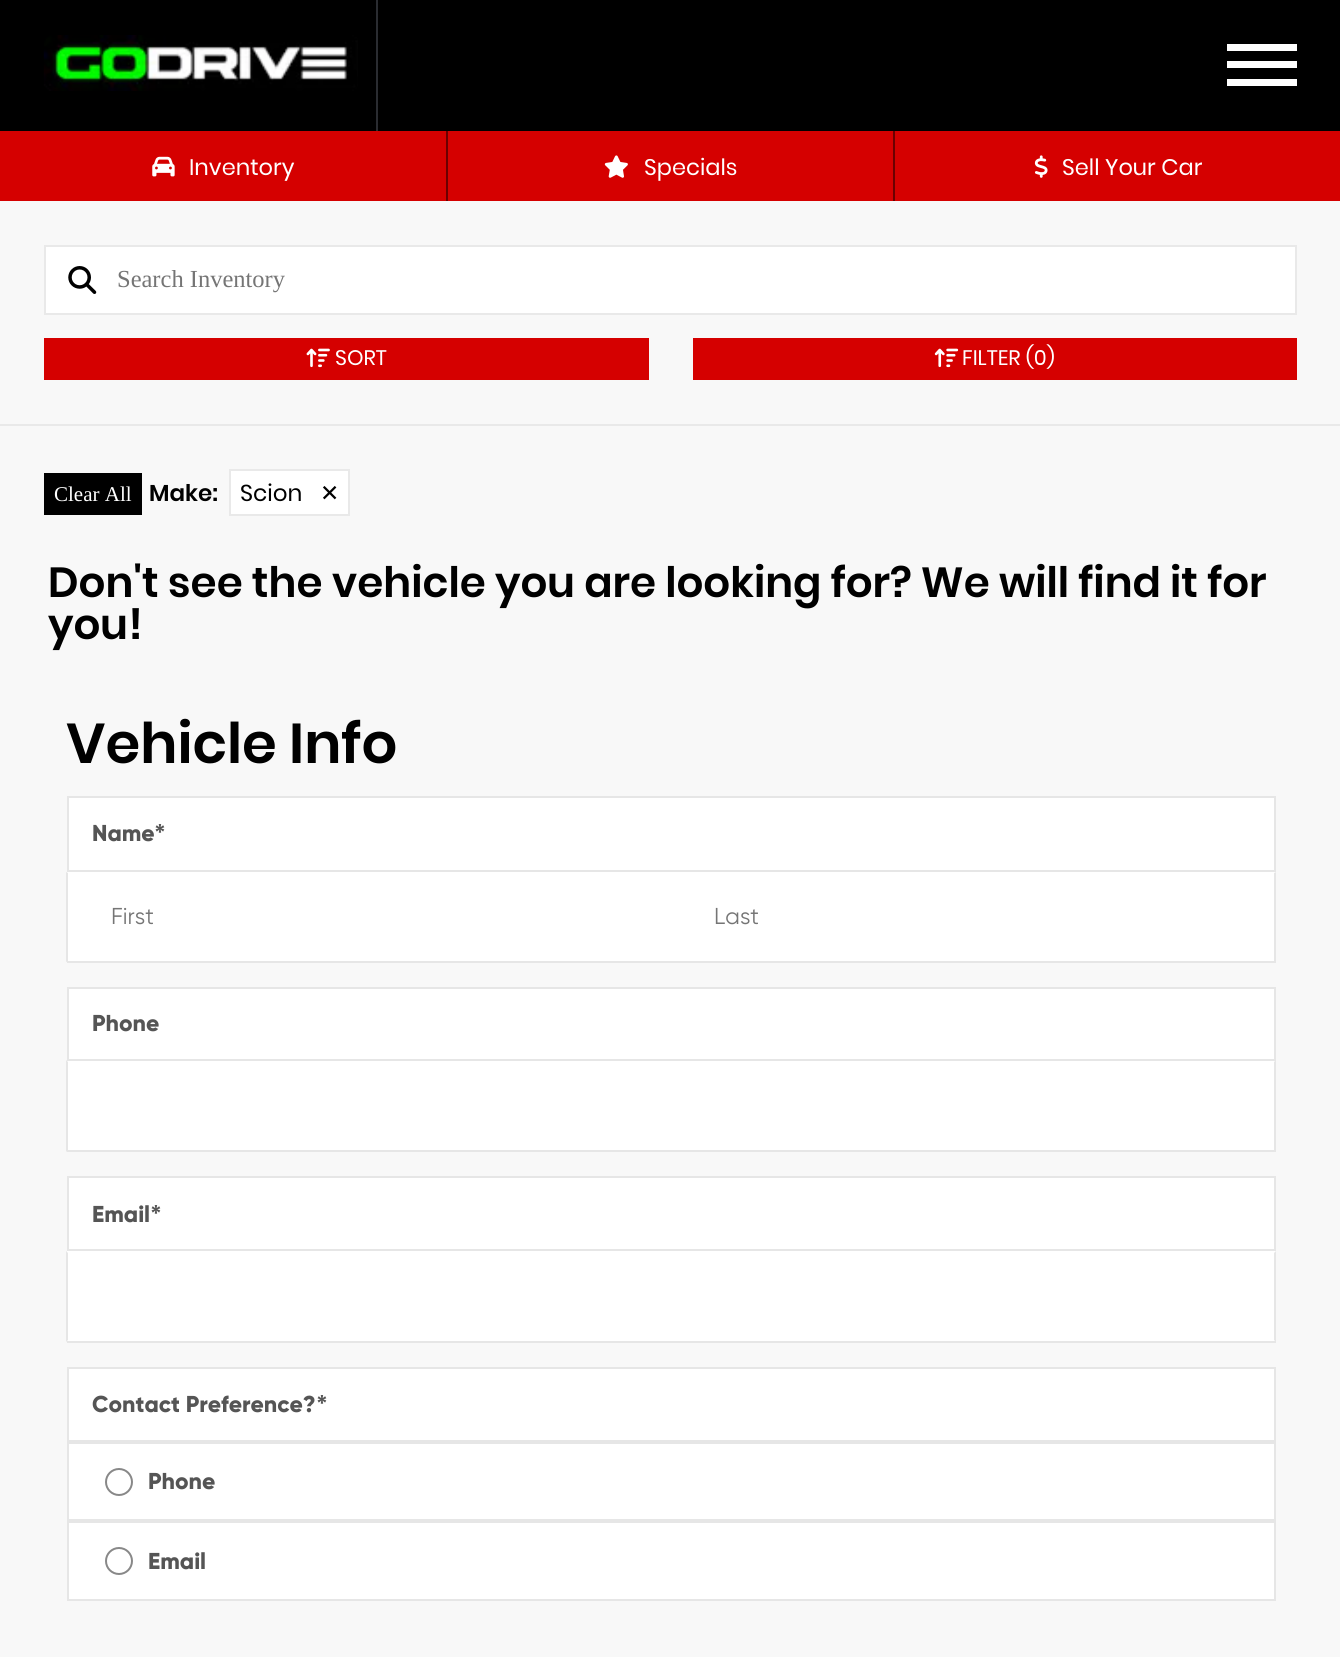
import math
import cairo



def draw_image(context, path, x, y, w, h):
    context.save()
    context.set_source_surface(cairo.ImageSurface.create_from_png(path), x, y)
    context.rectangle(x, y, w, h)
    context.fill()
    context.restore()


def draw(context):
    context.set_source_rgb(248 / 255, 248 / 255, 248 / 255)
    context.paint()
    context.set_source_rgb(0, 0, 0)
    context.rectangle(0, 0, 1340, 131)
    context.fill()
    context.set_source_rgb(42 / 255, 44 / 255, 49 / 255)
    context.rectangle(376, 0, 2, 131)
    context.fill()
    draw_image(context, "images/1.png", 43, 35, 315, 56)
    context.set_source_rgb(1, 1, 1)
    context.rectangle(1227, 44, 70, 7)
    context.fill()
    context.rectangle(1227, 61, 70, 7)
    context.fill()
    context.rectangle(1227, 79, 70, 7)
    context.fill()
    context.set_source_rgb(213 / 255, 0, 0)
    context.rectangle(0, 131, 1340, 70)
    context.fill()
    draw_image(context, "images/2.png", 152, 156, 23, 21)
    context.set_source_rgb(107 / 255, 0, 0)
    context.rectangle(893, 131, 2, 70)
    context.fill()
    context.rectangle(446, 131, 2, 70)
    context.fill()
    draw_image(context, "images/3.png", 604, 155, 24, 23)
    draw_image(context, "images/4.png", 1034, 155, 14, 23)
    context.set_source_rgb(233 / 255, 233 / 255, 233 / 255)
    context.rectangle(0, 424, 1340, 2)
    context.fill()
    context.set_source_rgb(1, 1, 1)
    context.rectangle(45, 246, 1251, 68)
    context.fill_preserve()
    context.set_source_rgb(233 / 255, 233 / 255, 233 / 255)
    context.stroke()
    draw_image(context, "images/5.png", 68, 266, 29, 28)
    context.set_source_rgb(213 / 255, 0, 0)
    context.rectangle(44, 338, 605, 42)
    context.fill()
    draw_image(context, "images/6.png", 306, 348, 24, 20)
    context.rectangle(693, 338, 604, 42)
    context.fill()
    draw_image(context, "images/7.png", 934, 348, 25, 20)
    context.set_source_rgb(0, 0, 0)
    context.rectangle(44, 473, 98, 42)
    context.fill()
    context.set_source_rgb(1, 1, 1)
    context.rectangle(230, 470, 119, 45)
    context.fill_preserve()
    context.set_source_rgb(233 / 255, 233 / 255, 233 / 255)
    context.stroke()
    context.set_source_rgb(1, 1, 1)
    context.rectangle(68, 797, 1207, 74)
    context.fill_preserve()
    context.set_source_rgb(230 / 255, 230 / 255, 230 / 255)
    context.stroke()
    context.set_source_rgb(1, 1, 1)
    context.rectangle(67, 872, 1209, 89)
    context.fill()
    context.set_source_rgb(230 / 255, 230 / 255, 230 / 255)
    context.rectangle(67, 961, 603, 2)
    context.fill()
    context.new_path()
    context.move_to(66, 962)
    context.line_to(66, 872)
    context.line_to(68, 873)
    context.line_to(68, 961)
    context.close_path()
    context.fill()
    context.new_path()
    context.move_to(1276, 872)
    context.line_to(1276, 962)
    context.line_to(1274, 961)
    context.line_to(1274, 873)
    context.close_path()
    context.fill()
    context.rectangle(670, 961, 606, 2)
    context.fill()
    context.set_source_rgb(1, 1, 1)
    context.rectangle(67, 1061, 1208, 89)
    context.fill()
    context.set_source_rgb(230 / 255, 230 / 255, 230 / 255)
    context.new_path()
    context.move_to(1276, 1060)
    context.line_to(1276, 1152)
    context.line_to(1274, 1150)
    context.line_to(1274, 1062)
    context.close_path()
    context.fill()
    context.rectangle(67, 1150, 1209, 2)
    context.fill()
    context.new_path()
    context.move_to(66, 1152)
    context.line_to(66, 1060)
    context.line_to(68, 1062)
    context.line_to(68, 1150)
    context.close_path()
    context.fill()
    context.set_source_rgb(1, 1, 1)
    context.rectangle(68, 988, 1207, 72)
    context.fill_preserve()
    context.set_source_rgb(230 / 255, 230 / 255, 230 / 255)
    context.stroke()
    context.set_source_rgb(1, 1, 1)
    context.rectangle(68, 1177, 1207, 73)
    context.fill_preserve()
    context.set_source_rgb(230 / 255, 230 / 255, 230 / 255)
    context.stroke()
    context.set_source_rgb(1, 1, 1)
    context.rectangle(67, 1251, 1209, 90)
    context.fill()
    context.set_source_rgb(230 / 255, 230 / 255, 230 / 255)
    context.new_path()
    context.move_to(1276, 1251)
    context.line_to(1276, 1342)
    context.line_to(1274, 1340)
    context.line_to(1274, 1253)
    context.close_path()
    context.fill()
    context.rectangle(67, 1341, 1209, 2)
    context.fill()
    context.new_path()
    context.move_to(66, 1342)
    context.line_to(66, 1251)
    context.line_to(68, 1253)
    context.line_to(68, 1340)
    context.close_path()
    context.fill()
    context.set_source_rgb(1, 1, 1)
    context.rectangle(68, 1368, 1207, 73)
    context.fill_preserve()
    context.set_source_rgb(230 / 255, 230 / 255, 230 / 255)
    context.stroke()
    context.set_source_rgb(1, 1, 1)
    context.rectangle(68, 1443, 1207, 77)
    context.fill_preserve()
    context.set_source_rgb(230 / 255, 230 / 255, 230 / 255)
    context.stroke()
    context.arc(119, 1482, 13, 0, 2 * math.pi)
    context.set_source_rgb(136 / 255, 136 / 255, 136 / 255)
    context.stroke()
    context.set_source_rgb(1, 1, 1)
    context.rectangle(68, 1522, 1207, 78)
    context.fill_preserve()
    context.set_source_rgb(230 / 255, 230 / 255, 230 / 255)
    context.stroke()
    context.arc(119, 1561, 13, 0, 2 * math.pi)
    context.set_source_rgb(136 / 255, 136 / 255, 136 / 255)
    context.stroke()
    context.select_font_face("Poppins")
    context.set_font_size(22.5)
    context.set_source_rgb(1, 1, 1)
    context.move_to(189, 175)
    context.show_text("Inventory")
    context.move_to(644, 175)
    context.show_text("Specials")
    context.move_to(1062, 175)
    context.show_text("Sell Your Car")
    context.select_font_face("Liberation Serif")
    context.set_font_size(24.5)
    context.set_source_rgb(117 / 255, 117 / 255, 117 / 255)
    context.move_to(117, 287)
    context.show_text("Search Inventory")
    context.select_font_face("Poppins")
    context.set_font_size(21)
    context.set_source_rgb(1, 1, 1)
    context.move_to(335, 365)
    context.show_text("SORT")
    context.move_to(962, 365)
    context.show_text("FILTER (0)")
    context.select_font_face("Liberation Serif")
    context.move_to(54, 501)
    context.show_text("Clear All")
    context.select_font_face("Poppins SemiBold")
    context.set_font_size(23)
    context.set_source_rgb(0, 0, 0)
    context.move_to(149, 501)
    context.show_text("Make:")
    context.select_font_face("Poppins")
    context.move_to(240, 501)
    context.show_text("Scion")
    context.select_font_face("DejaVu Sans")
    context.move_to(320, 501)
    context.show_text("✕")
    context.select_font_face("Poppins SemiBold")
    context.set_font_size(42)
    context.move_to(48, 597)
    context.show_text("Don't see the vehicle you are looking for? We will find it for")
    context.move_to(48, 639)
    context.show_text("you!")
    context.set_font_size(56)
    context.move_to(66, 763)
    context.show_text("Vehicle Info")
    context.select_font_face("Gilroy ExtraBold")
    context.set_font_size(23)
    context.set_source_rgb(85 / 255, 85 / 255, 85 / 255)
    context.move_to(92, 841)
    context.show_text("Name")
    context.select_font_face("Poppins SemiBold")
    context.move_to(154, 841)
    context.show_text("*")
    context.select_font_face("Gilroy")
    context.set_source_rgb(117 / 255, 117 / 255, 117 / 255)
    context.move_to(111, 924)
    context.show_text("First")
    context.move_to(714, 924)
    context.show_text("Last")
    context.select_font_face("Gilroy ExtraBold")
    context.set_source_rgb(85 / 255, 85 / 255, 85 / 255)
    context.move_to(92, 1031)
    context.show_text("Phone")
    context.move_to(92, 1222)
    context.show_text("Email")
    context.select_font_face("Poppins SemiBold")
    context.move_to(150, 1222)
    context.show_text("*")
    context.select_font_face("Gilroy ExtraBold")
    context.move_to(92, 1412)
    context.show_text("Contact Preference?")
    context.select_font_face("Poppins SemiBold")
    context.move_to(316, 1412)
    context.show_text("*")
    context.select_font_face("Gilroy ExtraBold")
    context.move_to(148, 1489)
    context.show_text("Phone")
    context.move_to(148, 1569)
    context.show_text("Email")


surface = cairo.ImageSurface(cairo.Format.RGB24, 1340, 1657)
context = cairo.Context(surface)
options = cairo.FontOptions()
options.set_hint_metrics(cairo.HintMetrics.OFF)
options.set_hint_style(cairo.HintStyle.NONE)
context.set_font_options(options)
context.set_miter_limit(4)
draw(context)
surface.write_to_png("out.png")
